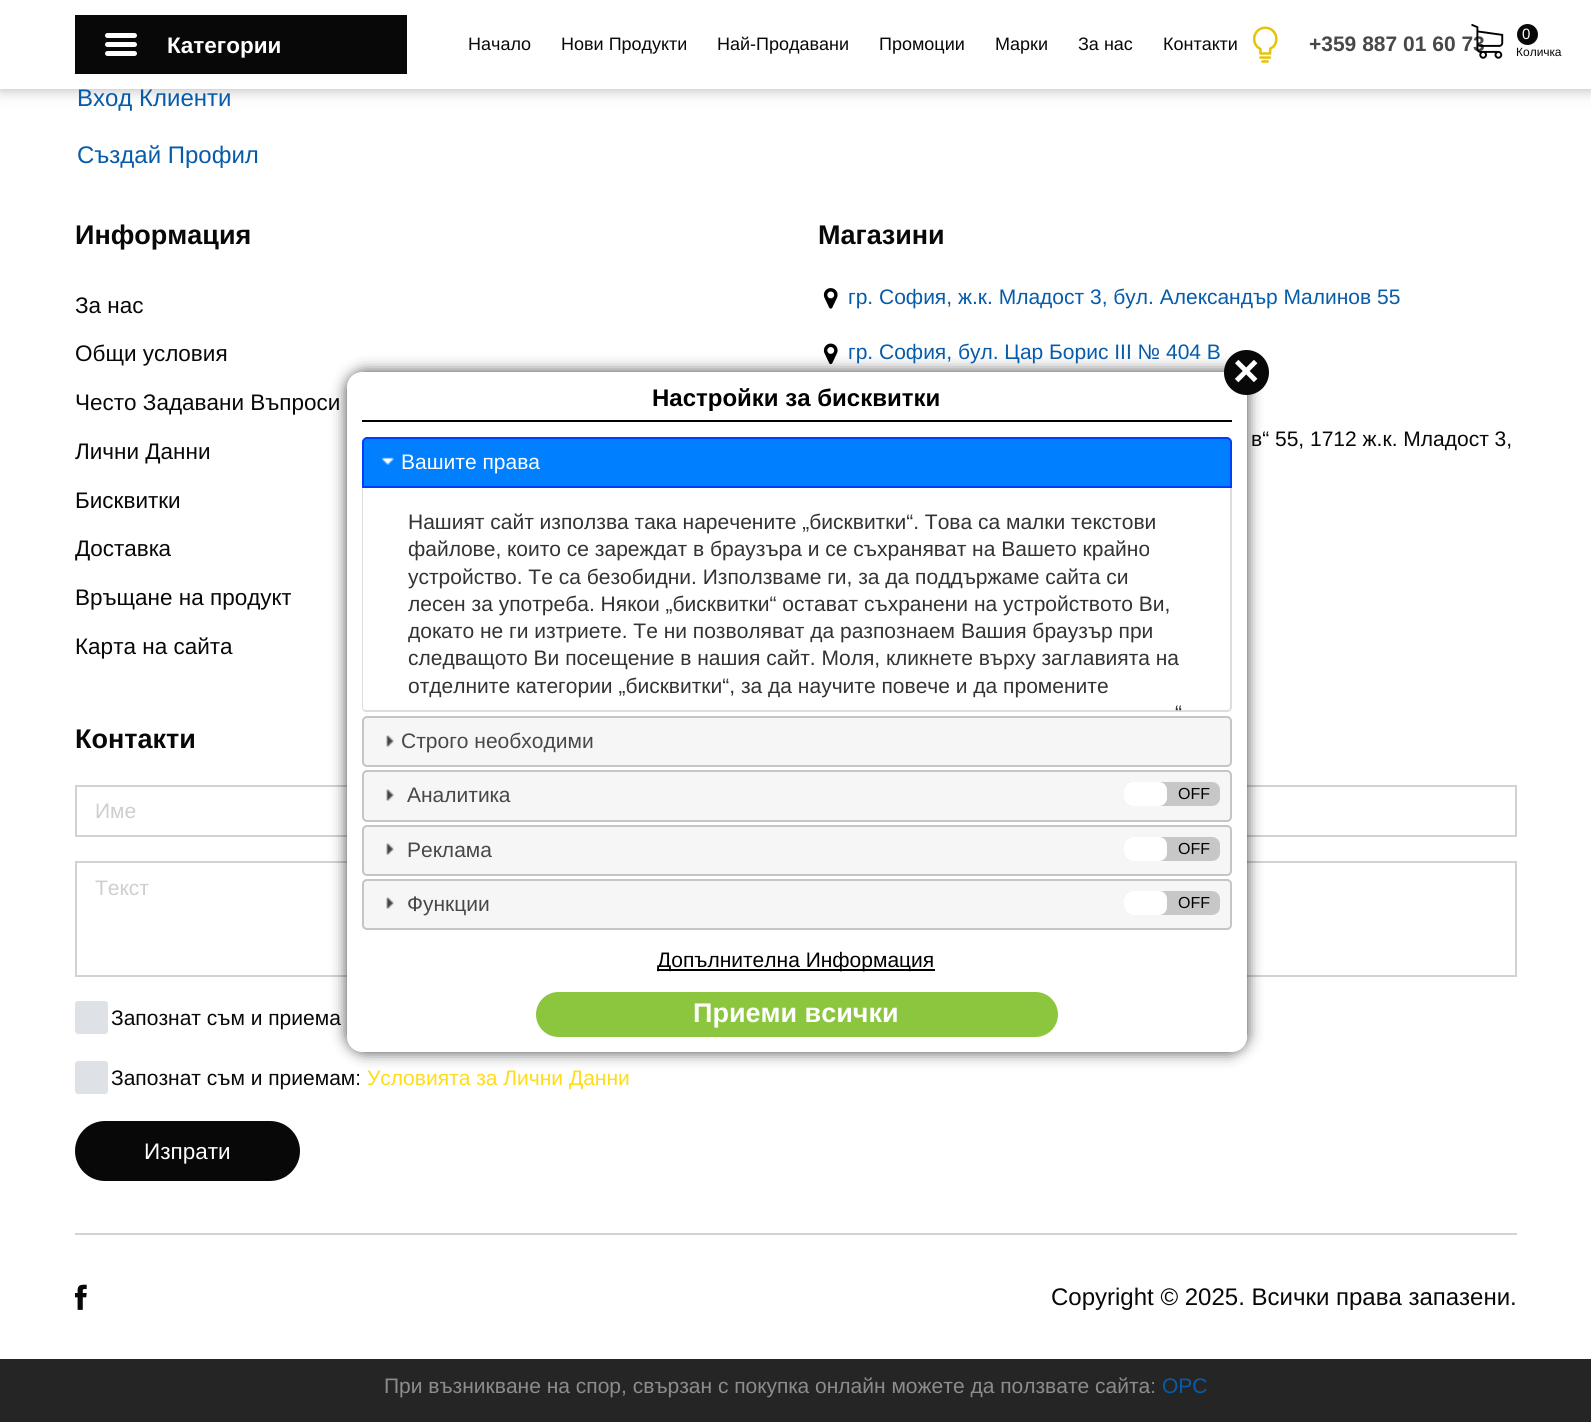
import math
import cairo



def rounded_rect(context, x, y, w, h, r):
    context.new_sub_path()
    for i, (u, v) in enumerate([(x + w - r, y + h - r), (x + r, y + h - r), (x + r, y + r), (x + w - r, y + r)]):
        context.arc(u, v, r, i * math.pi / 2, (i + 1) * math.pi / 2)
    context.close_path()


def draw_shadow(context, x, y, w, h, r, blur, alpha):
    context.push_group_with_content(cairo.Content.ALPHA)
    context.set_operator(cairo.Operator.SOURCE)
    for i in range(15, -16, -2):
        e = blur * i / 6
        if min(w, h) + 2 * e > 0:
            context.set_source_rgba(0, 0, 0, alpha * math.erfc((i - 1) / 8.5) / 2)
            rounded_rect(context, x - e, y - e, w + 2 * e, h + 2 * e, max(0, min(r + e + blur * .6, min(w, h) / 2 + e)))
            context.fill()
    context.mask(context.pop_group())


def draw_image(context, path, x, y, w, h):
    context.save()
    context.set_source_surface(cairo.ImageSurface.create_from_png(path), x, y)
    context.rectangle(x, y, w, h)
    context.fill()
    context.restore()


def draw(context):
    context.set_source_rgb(1, 1, 1)
    context.paint()
    context.set_source_rgb(60 / 255, 60 / 255, 60 / 255)
    draw_shadow(context, 0, 0, 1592, 89, 0, 7.5, 0.4)
    context.set_source_rgb(1, 1, 1)
    context.rectangle(0, 0, 1591, 89)
    context.fill()
    context.set_source_rgb(8 / 255, 8 / 255, 8 / 255)
    context.rectangle(75, 15, 332, 59)
    context.fill()
    context.set_source_rgb(1, 1, 1)
    rounded_rect(context, 105, 42, 32, 5, 2.5)
    context.fill()
    rounded_rect(context, 105, 33, 32, 5, 2.5)
    context.fill()
    rounded_rect(context, 105, 51, 32, 5, 2.5)
    context.fill()
    draw_image(context, "images/1.png", 1253, 26, 25, 37)
    context.set_source_rgb(8 / 255, 8 / 255, 8 / 255)
    context.arc(1527.5, 34.5, 10.5, 0, 2 * math.pi)
    context.fill()
    draw_image(context, "images/3.png", 823, 288, 15, 21)
    draw_image(context, "images/4.png", 823, 343, 15, 22)
    context.rectangle(76, 786, 697, 50)
    context.set_source_rgb(210 / 255, 210 / 255, 210 / 255)
    context.stroke()
    context.rectangle(820, 786, 696, 50)
    context.stroke()
    context.rectangle(76, 862, 1440, 114)
    context.stroke()
    context.set_source_rgb(222 / 255, 226 / 255, 230 / 255)
    rounded_rect(context, 75, 1001, 33, 33, 3)
    context.fill()
    rounded_rect(context, 75, 1061, 33, 33, 3)
    context.fill()
    context.set_source_rgb(8 / 255, 8 / 255, 8 / 255)
    rounded_rect(context, 75, 1121, 225, 60, 30)
    context.fill()
    context.set_source_rgb(210 / 255, 210 / 255, 210 / 255)
    context.rectangle(75, 1233, 1442, 2)
    context.fill()
    draw_image(context, "images/5.png", 75, 1284, 12, 26)
    context.set_source_rgb(37 / 255, 37 / 255, 37 / 255)
    context.rectangle(0, 1359, 1591, 63)
    context.fill()
    context.set_source_rgb(0, 0, 0)
    draw_shadow(context, 347, 372, 900, 680, 18, 7.5, 0.75)
    context.set_source_rgb(1, 1, 1)
    rounded_rect(context, 347, 372, 900, 680, 15)
    context.fill()
    context.set_source_rgb(8 / 255, 8 / 255, 8 / 255)
    context.arc(1246.5, 372.5, 22.5, 0, 2 * math.pi)
    context.fill()
    context.set_source_rgb(0, 0, 0)
    context.rectangle(362, 420, 870, 2)
    context.fill()
    context.set_source_rgb(221 / 255, 221 / 255, 221 / 255)
    context.set_fill_rule(cairo.FillRule.EVEN_ODD)
    context.new_path()
    context.move_to(362, 487)
    context.line_to(1232, 487)
    context.line_to(1232, 707)
    context.curve_to(1232, 710, 1229, 712, 1227, 712)
    context.line_to(366, 712)
    context.curve_to(364, 712, 362, 710, 362, 707)
    context.close_path()
    context.move_to(363, 487)
    context.line_to(1230, 487)
    context.line_to(1230, 707)
    context.curve_to(1230, 709, 1229, 710, 1227, 710)
    context.line_to(366, 710)
    context.curve_to(364, 710, 363, 709, 363, 707)
    context.close_path()
    context.fill()
    context.set_source_rgb(0, 127 / 255, 1)
    context.new_path()
    context.move_to(367, 438)
    context.line_to(1227, 438)
    context.curve_to(1229, 438, 1231, 440, 1231, 442)
    context.line_to(1231, 487)
    context.line_to(363, 487)
    context.line_to(363, 442)
    context.curve_to(363, 440, 365, 438, 367, 438)
    context.close_path()
    context.fill_preserve()
    context.set_source_rgb(0, 62 / 255, 1)
    context.stroke()
    draw_image(context, "images/6.png", 381, 457, 13, 8)
    context.set_source_rgb(246 / 255, 246 / 255, 246 / 255)
    rounded_rect(context, 363, 717, 868, 49, 4)
    context.fill_preserve()
    context.set_source_rgb(197 / 255, 197 / 255, 197 / 255)
    context.stroke()
    draw_image(context, "images/7.png", 386, 735, 8, 12)
    context.set_source_rgb(246 / 255, 246 / 255, 246 / 255)
    rounded_rect(context, 363, 771, 868, 50, 4)
    context.fill_preserve()
    context.set_source_rgb(197 / 255, 197 / 255, 197 / 255)
    context.stroke()
    draw_image(context, "images/7.png", 386, 789, 8, 12)
    context.set_source_rgb(199 / 255, 199 / 255, 199 / 255)
    rounded_rect(context, 1124, 782, 96, 24, 8)
    context.fill()
    context.set_source_rgb(1, 1, 1)
    rounded_rect(context, 1124, 782, 43, 24, 8)
    context.fill()
    context.set_source_rgb(246 / 255, 246 / 255, 246 / 255)
    rounded_rect(context, 363, 826, 868, 49, 4)
    context.fill_preserve()
    context.set_source_rgb(197 / 255, 197 / 255, 197 / 255)
    context.stroke()
    draw_image(context, "images/7.png", 386, 843, 8, 12)
    context.set_source_rgb(199 / 255, 199 / 255, 199 / 255)
    rounded_rect(context, 1124, 837, 96, 24, 8)
    context.fill()
    context.set_source_rgb(1, 1, 1)
    rounded_rect(context, 1124, 837, 43, 24, 8)
    context.fill()
    context.set_source_rgb(246 / 255, 246 / 255, 246 / 255)
    rounded_rect(context, 363, 880, 868, 49, 4)
    context.fill_preserve()
    context.set_source_rgb(197 / 255, 197 / 255, 197 / 255)
    context.stroke()
    draw_image(context, "images/7.png", 386, 897, 8, 12)
    context.set_source_rgb(199 / 255, 199 / 255, 199 / 255)
    rounded_rect(context, 1124, 891, 96, 24, 8)
    context.fill()
    context.set_source_rgb(1, 1, 1)
    rounded_rect(context, 1124, 891, 43, 24, 8)
    context.fill()
    context.set_source_rgb(0, 0, 0)
    context.rectangle(657, 969, 278, 2)
    context.fill()
    context.set_source_rgb(140 / 255, 198 / 255, 63 / 255)
    rounded_rect(context, 536, 992, 522, 45, 22.5)
    context.fill()
    context.select_font_face("Liberation Sans", cairo.FontSlant.NORMAL, cairo.FontWeight.BOLD)
    context.set_font_size(22.5)
    context.set_source_rgb(1, 1, 1)
    context.move_to(167, 53)
    context.show_text("Категории")
    context.select_font_face("Liberation Sans")
    context.set_font_size(18)
    context.set_source_rgb(8 / 255, 8 / 255, 8 / 255)
    context.move_to(468, 50)
    context.show_text("Начало")
    context.move_to(561, 50)
    context.show_text("Нови Продукти")
    context.move_to(717, 50)
    context.show_text("Най-Продавани")
    context.move_to(879, 50)
    context.show_text("Промоции")
    context.move_to(995, 50)
    context.show_text("Марки")
    context.move_to(1078, 50)
    context.show_text("За нас")
    context.move_to(1163, 50)
    context.show_text("Контакти")
    context.select_font_face("Liberation Sans", cairo.FontSlant.NORMAL, cairo.FontWeight.BOLD)
    context.set_font_size(21)
    context.set_source_rgb(72 / 255, 72 / 255, 72 / 255)
    context.move_to(1309, 51)
    context.show_text("+359 887 01 60 73")
    draw_image(context, "images/2.png", 1471, 24, 33, 35)
    context.select_font_face("Liberation Sans")
    context.set_font_size(15)
    context.set_source_rgb(1, 1, 1)
    context.move_to(1522, 39)
    context.show_text("0")
    context.set_font_size(12)
    context.set_source_rgb(8 / 255, 8 / 255, 8 / 255)
    context.move_to(1516, 56)
    context.show_text("Количка")
    context.set_font_size(24)
    context.set_source_rgb(6 / 255, 91 / 255, 170 / 255)
    context.move_to(77, 106)
    context.show_text("Вход Клиенти")
    context.move_to(77, 163)
    context.show_text("Създай Профил")
    context.select_font_face("Liberation Sans", cairo.FontSlant.NORMAL, cairo.FontWeight.BOLD)
    context.set_font_size(27)
    context.set_source_rgb(8 / 255, 8 / 255, 8 / 255)
    context.move_to(75, 244)
    context.show_text("Информация")
    context.select_font_face("Liberation Sans")
    context.set_font_size(22.5)
    context.move_to(75, 313)
    context.show_text("За нас")
    context.move_to(75, 361)
    context.show_text("Общи условия")
    context.move_to(75, 410)
    context.show_text("Често Задавани Въпроси")
    context.move_to(75, 459)
    context.show_text("Лични Данни")
    context.move_to(75, 508)
    context.show_text("Бисквитки")
    context.move_to(75, 556)
    context.show_text("Доставкa")
    context.move_to(75, 605)
    context.show_text("Връщане на продукт")
    context.move_to(75, 654)
    context.show_text("Карта на сайта")
    context.select_font_face("Liberation Sans", cairo.FontSlant.NORMAL, cairo.FontWeight.BOLD)
    context.set_font_size(27)
    context.move_to(818, 244)
    context.show_text("Магазини")
    context.select_font_face("Liberation Sans")
    context.set_font_size(21)
    context.set_source_rgb(6 / 255, 91 / 255, 170 / 255)
    context.move_to(848, 304)
    context.show_text("гр. София, ж.к. Младост 3, бул. Александър Малинов 55")
    context.move_to(848, 359)
    context.show_text("гр. София, бул. Цар Борис III № 404 В")
    context.set_source_rgb(8 / 255, 8 / 255, 8 / 255)
    context.move_to(1251, 446)
    context.show_text("в“ 55, 1712 ж.к. Младост 3,")
    context.select_font_face("Liberation Sans", cairo.FontSlant.NORMAL, cairo.FontWeight.BOLD)
    context.set_font_size(27)
    context.move_to(75, 748)
    context.show_text("Контакти")
    context.select_font_face("Liberation Sans")
    context.set_font_size(21)
    context.set_source_rgb(206 / 255, 206 / 255, 206 / 255)
    context.move_to(95, 818)
    context.show_text("Име")
    context.move_to(95, 895)
    context.show_text("Текст")
    context.set_source_rgb(8 / 255, 8 / 255, 8 / 255)
    context.move_to(111, 1025)
    context.show_text("Запознат съм и приема")
    context.move_to(111, 1085)
    context.show_text("Запознат съм и приемам:")
    context.set_source_rgb(254 / 255, 220 / 255, 25 / 255)
    context.move_to(367, 1085)
    context.show_text("Условията за Лични Данни")
    context.set_font_size(22.5)
    context.set_source_rgb(1, 1, 1)
    context.move_to(144, 1159)
    context.show_text("Изпрати")
    context.set_font_size(24)
    context.set_source_rgb(8 / 255, 8 / 255, 8 / 255)
    context.move_to(1051, 1305)
    context.show_text("Copyright © 2025. Всички права запазени.")
    context.set_font_size(21)
    context.set_source_rgb(140 / 255, 140 / 255, 140 / 255)
    context.move_to(384, 1393)
    context.show_text("При възникване на спор, свързан с покупка онлайн можете да ползвате сайта:")
    context.set_source_rgb(6 / 255, 91 / 255, 170 / 255)
    context.move_to(1162, 1393)
    context.show_text("ОРС")
    context.select_font_face("Liberation Sans", cairo.FontSlant.NORMAL, cairo.FontWeight.BOLD)
    context.set_font_size(45)
    context.set_source_rgb(1, 1, 1)
    context.move_to(1233, 386)
    context.show_text("×")
    context.set_font_size(24)
    context.set_source_rgb(0, 0, 0)
    context.move_to(652, 406)
    context.show_text("Настройки за бисквитки")
    context.select_font_face("Liberation Sans")
    context.set_font_size(21)
    context.set_source_rgb(1, 1, 1)
    context.move_to(401, 469)
    context.show_text("Вашите права")
    context.set_source_rgb(51 / 255, 51 / 255, 51 / 255)
    context.move_to(408, 529)
    context.show_text("Нашият сайт използва така наречените „бисквитки“. Това са малки текстови")
    context.move_to(408, 556)
    context.show_text("файлове, които се зареждат в браузъра и се съхраняват на Вашето крайно")
    context.move_to(408, 584)
    context.show_text("устройство. Те са безобидни. Използваме ги, за да поддържаме сайта си")
    context.move_to(408, 611)
    context.show_text("лесен за употреба. Някои „бисквитки“ остават съхранени на устройството Ви,")
    context.move_to(408, 638)
    context.show_text("докато не ги изтриете. Те ни позволяват да разпознаем Вашия браузър при")
    context.move_to(408, 665)
    context.show_text("следващото Ви посещение в нашия сайт. Моля, кликнете върху заглавията на")
    context.move_to(408, 693)
    context.show_text("отделните категории „бисквитки“, за да научите повече и да промените")
    context.move_to(1175, 720)
    context.show_text("“")
    context.set_source_rgb(72 / 255, 72 / 255, 72 / 255)
    context.move_to(401, 748)
    context.show_text("Строго необходими")
    context.move_to(407, 802)
    context.show_text("Аналитика")
    context.set_font_size(16)
    context.set_source_rgb(0, 0, 0)
    context.move_to(1178, 799)
    context.show_text("OFF")
    context.set_font_size(21)
    context.set_source_rgb(72 / 255, 72 / 255, 72 / 255)
    context.move_to(407, 857)
    context.show_text("Реклама")
    context.set_font_size(16)
    context.set_source_rgb(0, 0, 0)
    context.move_to(1178, 854)
    context.show_text("OFF")
    context.set_font_size(21)
    context.set_source_rgb(72 / 255, 72 / 255, 72 / 255)
    context.move_to(407, 911)
    context.show_text("Функции")
    context.set_font_size(16)
    context.set_source_rgb(0, 0, 0)
    context.move_to(1178, 908)
    context.show_text("OFF")
    context.set_font_size(21)
    context.move_to(657, 967)
    context.show_text("Допълнителна Информация")
    context.select_font_face("Liberation Sans", cairo.FontSlant.NORMAL, cairo.FontWeight.BOLD)
    context.set_font_size(27)
    context.set_source_rgb(1, 1, 1)
    context.move_to(693, 1022)
    context.show_text("Приеми всички")


surface = cairo.ImageSurface(cairo.Format.RGB24, 1591, 1422)
context = cairo.Context(surface)
options = cairo.FontOptions()
options.set_hint_metrics(cairo.HintMetrics.OFF)
options.set_hint_style(cairo.HintStyle.NONE)
context.set_font_options(options)
context.set_miter_limit(4)
draw(context)
surface.write_to_png("out.png")
